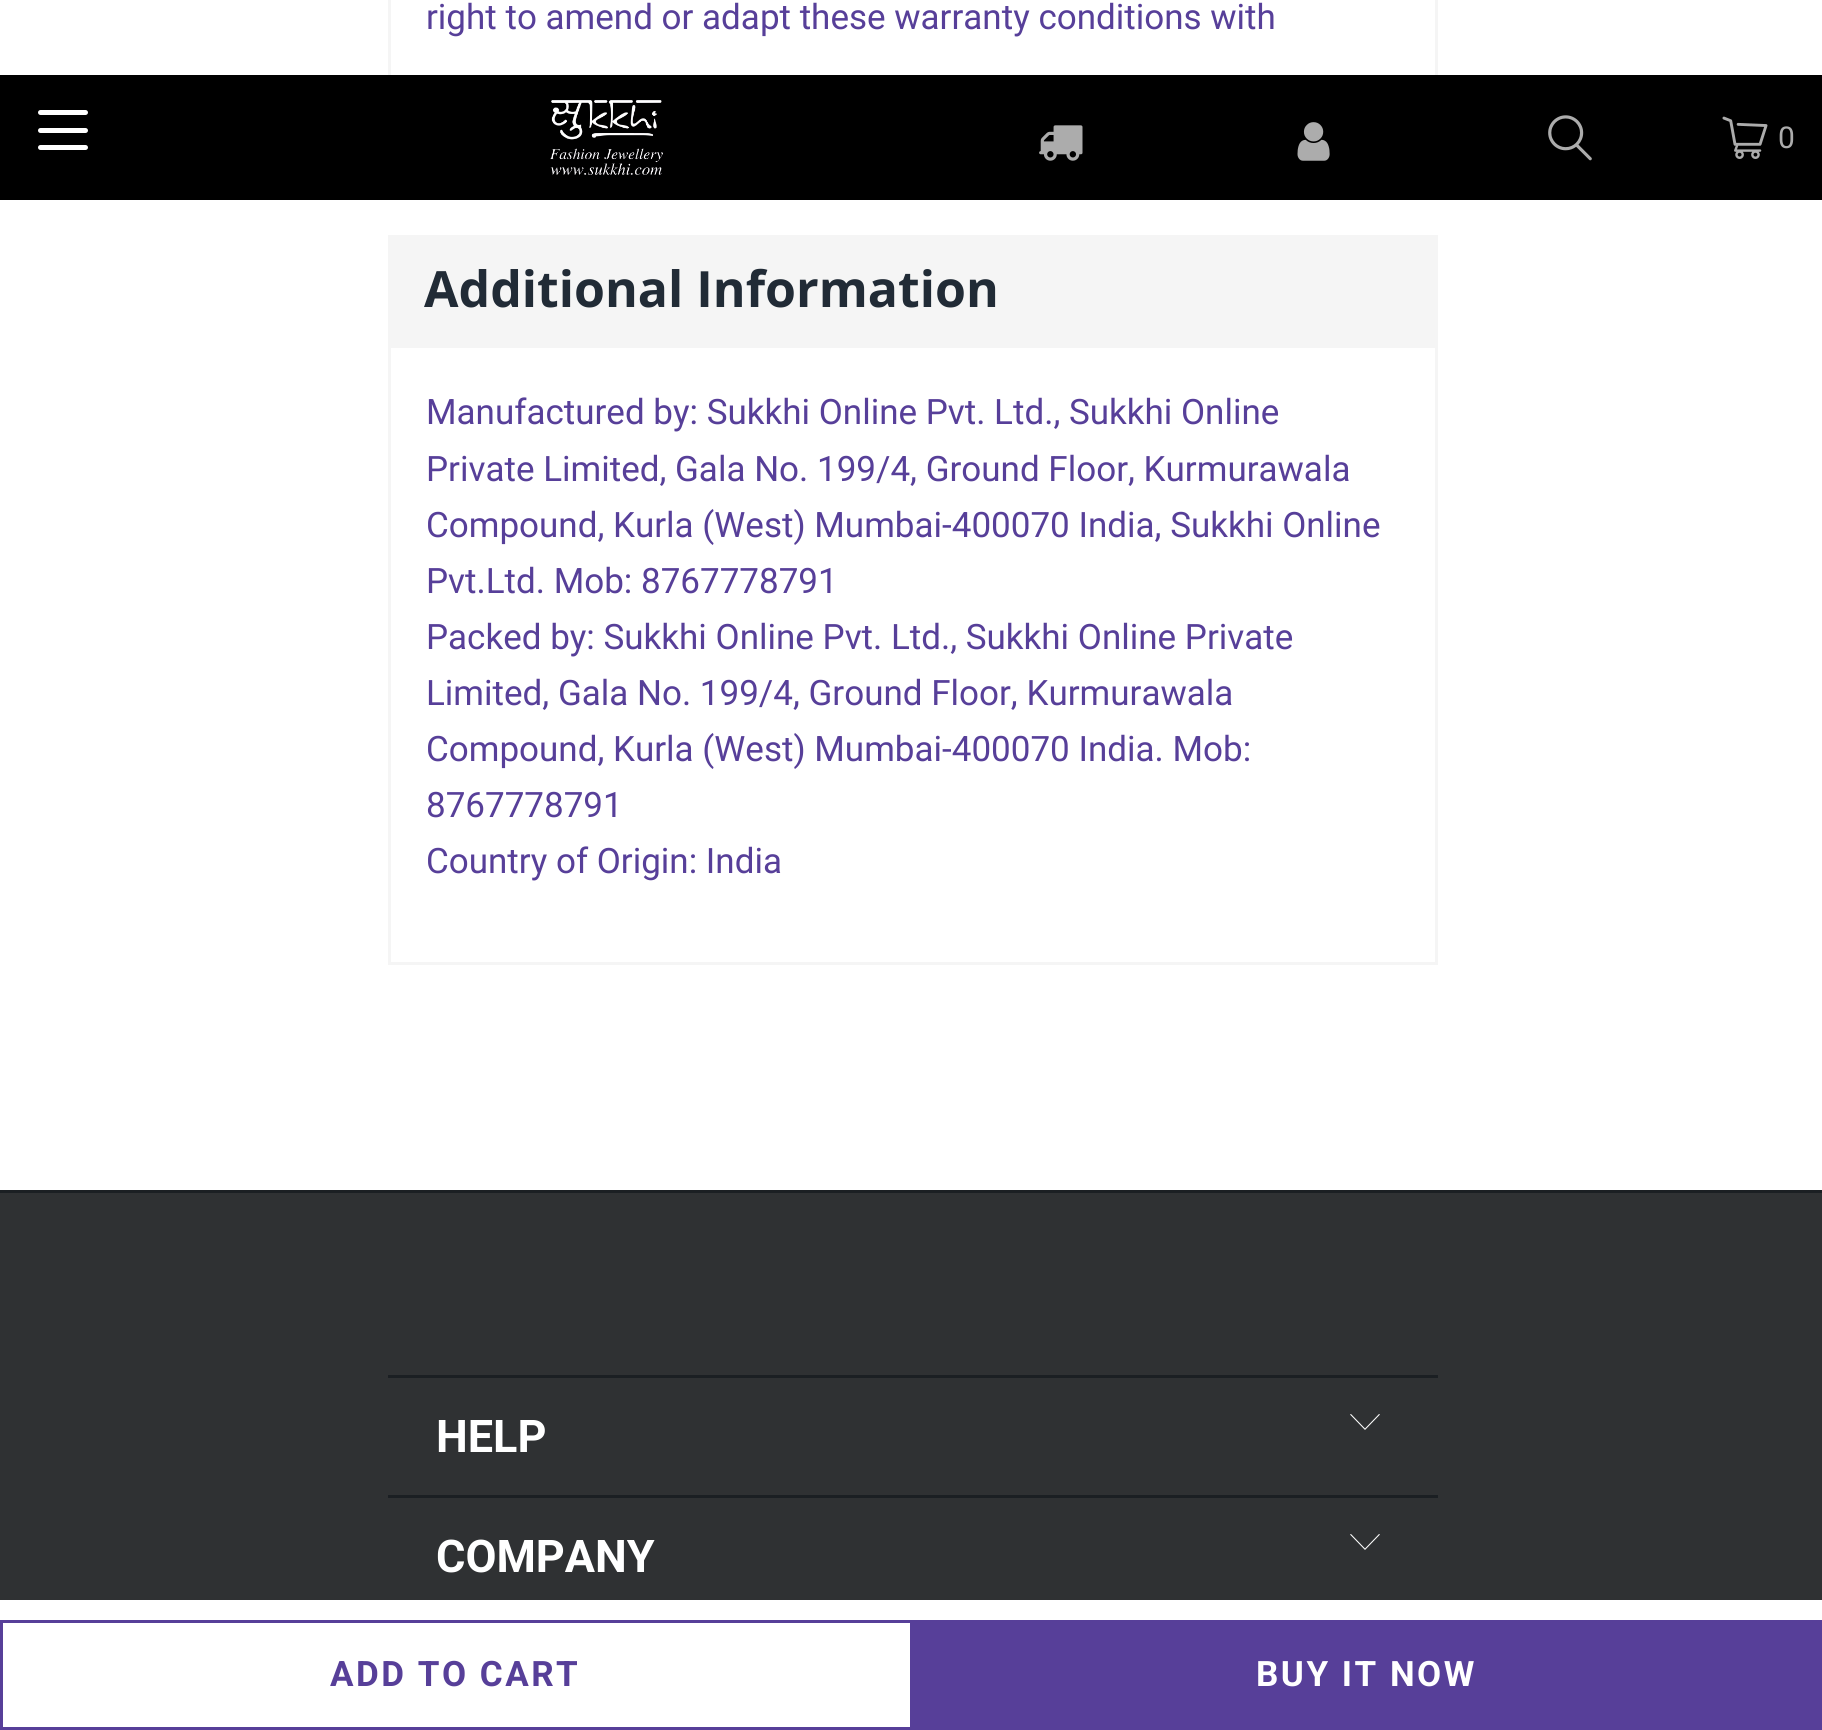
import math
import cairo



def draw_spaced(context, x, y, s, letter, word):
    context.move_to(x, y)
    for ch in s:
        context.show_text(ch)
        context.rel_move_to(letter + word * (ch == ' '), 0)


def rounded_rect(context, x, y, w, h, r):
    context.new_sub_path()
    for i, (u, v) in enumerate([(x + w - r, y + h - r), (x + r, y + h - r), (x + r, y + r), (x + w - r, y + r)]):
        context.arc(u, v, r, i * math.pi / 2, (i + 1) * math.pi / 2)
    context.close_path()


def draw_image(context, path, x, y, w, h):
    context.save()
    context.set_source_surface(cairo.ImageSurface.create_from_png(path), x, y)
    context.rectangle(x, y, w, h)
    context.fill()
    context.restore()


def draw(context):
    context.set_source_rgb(1, 1, 1)
    context.paint()
    context.rectangle(389.5, -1.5, 1047, 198)
    context.set_source_rgb(245 / 255, 245 / 255, 245 / 255)
    context.set_line_width(3)
    context.stroke()
    context.rectangle(388, 235, 1050, 110)
    context.fill()
    context.rectangle(389.5, 346.5, 1047, 617)
    context.stroke()
    context.rectangle(1.5, 1621.5, 910, 107)
    context.set_source_rgb(87 / 255, 63 / 255, 153 / 255)
    context.stroke()
    context.rectangle(913, 1620, 909, 110)
    context.fill()
    context.set_source_rgb(0, 0, 0)
    context.rectangle(0, 75, 1822, 125)
    context.fill()
    context.set_source_rgb(1, 1, 1)
    rounded_rect(context, 38, 110, 50, 5, 2.5)
    context.fill()
    rounded_rect(context, 38, 128, 50, 5, 2.5)
    context.fill()
    rounded_rect(context, 38, 145, 50, 5, 2.5)
    context.fill()
    draw_image(context, "images/1.png", 550, 100, 113, 75)
    draw_image(context, "images/2.png", 1039, 125, 44, 36)
    draw_image(context, "images/3.png", 1297, 122, 33, 39)
    draw_image(context, "images/4.png", 1548, 115, 44, 46)
    draw_image(context, "images/5.png", 1722, 116, 46, 43)
    context.set_source_rgb(47 / 255, 49 / 255, 51 / 255)
    context.rectangle(0, 1193, 1822, 407)
    context.fill()
    context.set_source_rgb(27 / 255, 31 / 255, 35 / 255)
    context.rectangle(0, 1190, 1822, 3)
    context.fill()
    context.rectangle(388, 1375, 1050, 3)
    context.fill()
    context.set_source_rgb(1, 1, 1)
    context.new_path()
    context.move_to(1365, 1430)
    context.line_to(1350, 1414.5)
    context.line_to(1351, 1414)
    context.line_to(1365, 1428.5)
    context.line_to(1379, 1414)
    context.line_to(1380, 1414.5)
    context.close_path()
    context.fill()
    context.set_source_rgb(27 / 255, 31 / 255, 35 / 255)
    context.rectangle(388, 1495, 1050, 3)
    context.fill()
    context.set_source_rgb(1, 1, 1)
    context.new_path()
    context.move_to(1365, 1550)
    context.line_to(1350, 1534.5)
    context.line_to(1351, 1534)
    context.line_to(1365, 1548.5)
    context.line_to(1379, 1534)
    context.line_to(1380, 1534.5)
    context.close_path()
    context.fill()
    context.select_font_face("Roboto")
    context.set_font_size(35)
    context.set_source_rgb(87 / 255, 63 / 255, 153 / 255)
    context.move_to(426, 29)
    context.show_text("right to amend or adapt these warranty conditions with")
    context.select_font_face("Open Sans", cairo.FontSlant.NORMAL, cairo.FontWeight.BOLD)
    context.set_font_size(50)
    context.set_source_rgb(33 / 255, 43 / 255, 54 / 255)
    context.move_to(424, 307)
    context.show_text("Additional Information")
    context.select_font_face("Roboto")
    context.set_font_size(35)
    context.set_source_rgb(87 / 255, 63 / 255, 153 / 255)
    context.move_to(426, 424)
    context.show_text("Manufactured by: Sukkhi Online Pvt. Ltd., Sukkhi Online")
    context.move_to(426, 481)
    context.show_text("Private Limited, Gala No. 199/4, Ground Floor, Kurmurawala")
    context.move_to(426, 537)
    context.show_text("Compound, Kurla (West) Mumbai-400070 India, Sukkhi Online")
    context.move_to(426, 593)
    context.show_text("Pvt.Ltd. Mob: 8767778791")
    context.move_to(426, 649)
    context.show_text("Packed by: Sukkhi Online Pvt. Ltd., Sukkhi Online Private")
    context.move_to(426, 705)
    context.show_text("Limited, Gala No. 199/4, Ground Floor, Kurmurawala")
    context.move_to(426, 761)
    context.show_text("Compound, Kurla (West) Mumbai-400070 India. Mob:")
    context.move_to(426, 817)
    context.show_text("8767778791")
    context.move_to(426, 873)
    context.show_text("Country of Origin: India")
    context.select_font_face("Roboto", cairo.FontSlant.NORMAL, cairo.FontWeight.BOLD)
    draw_spaced(context, 330, 1686, "ADD TO CART", 2.5, 0)
    context.set_source_rgb(1, 1, 1)
    draw_spaced(context, 1256, 1686, "BUY IT NOW", 2.5, 0)
    context.select_font_face("Roboto")
    context.set_font_size(30)
    context.set_source_rgb(172 / 255, 172 / 255, 172 / 255)
    draw_spaced(context, 1778, 148, "0", 2.5, 0)
    context.select_font_face("Roboto", cairo.FontSlant.NORMAL, cairo.FontWeight.BOLD)
    context.set_font_size(45)
    context.set_source_rgb(1, 1, 1)
    context.move_to(436, 1452)
    context.show_text("HELP")
    context.move_to(436, 1572)
    context.show_text("COMPANY")


surface = cairo.ImageSurface(cairo.Format.RGB24, 1822, 1730)
context = cairo.Context(surface)
options = cairo.FontOptions()
options.set_hint_metrics(cairo.HintMetrics.OFF)
options.set_hint_style(cairo.HintStyle.NONE)
context.set_font_options(options)
context.set_miter_limit(4)
draw(context)
surface.write_to_png("out.png")
